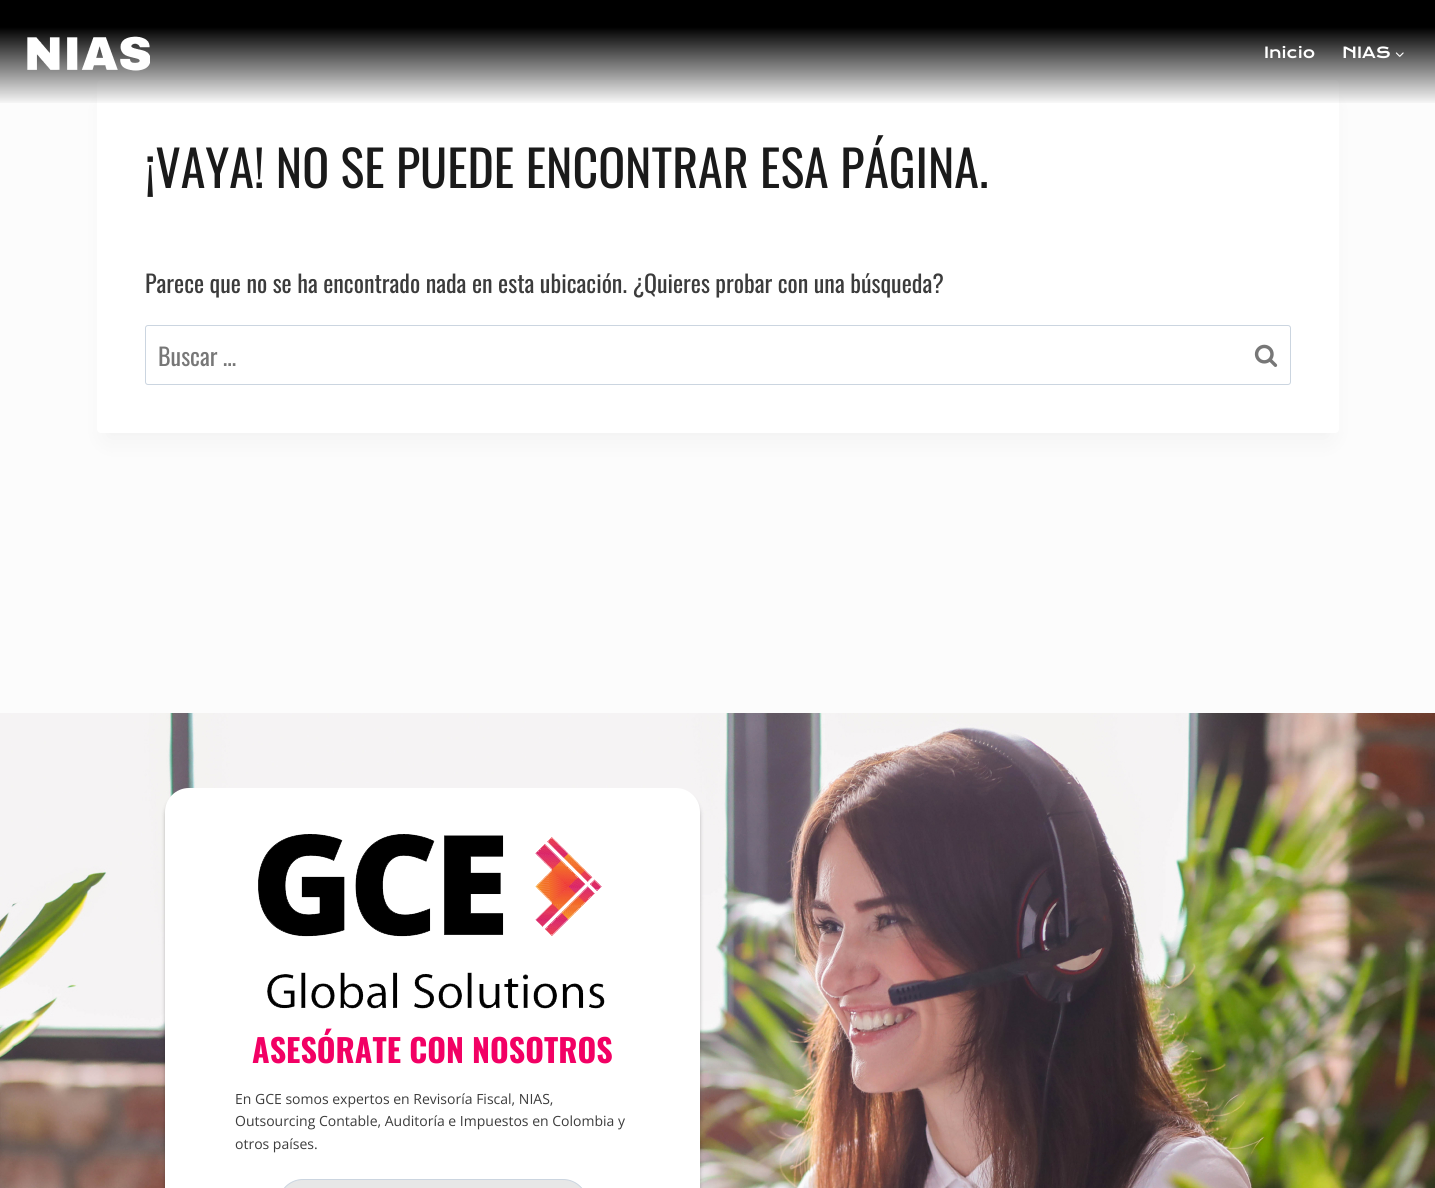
import math
import cairo



def rounded_rect(context, x, y, w, h, r):
    context.new_sub_path()
    for i, (u, v) in enumerate([(x + w - r, y + h - r), (x + r, y + h - r), (x + r, y + r), (x + w - r, y + r)]):
        context.arc(u, v, r, i * math.pi / 2, (i + 1) * math.pi / 2)
    context.close_path()


def draw_shadow(context, x, y, w, h, r, blur, alpha):
    context.push_group_with_content(cairo.Content.ALPHA)
    context.set_operator(cairo.Operator.SOURCE)
    for i in range(15, -16, -2):
        e = blur * i / 6
        if min(w, h) + 2 * e > 0:
            context.set_source_rgba(0, 0, 0, alpha * math.erfc((i - 1) / 8.5) / 2)
            rounded_rect(context, x - e, y - e, w + 2 * e, h + 2 * e, max(0, min(r + e + blur * .6, min(w, h) / 2 + e)))
            context.fill()
    context.mask(context.pop_group())


def draw_image(context, path, x, y, w, h):
    context.save()
    context.set_source_surface(cairo.ImageSurface.create_from_png(path), x, y)
    context.rectangle(x, y, w, h)
    context.fill()
    context.restore()


def draw(context):
    context.set_source_rgb(252 / 255, 252 / 255, 252 / 255)
    context.paint()
    context.set_source_rgb(0, 0, 0)
    draw_shadow(context, 107, 105, 1222, 333, 0, 12.5, 0.05)
    context.set_source_rgb(1, 1, 1)
    rounded_rect(context, 97, 80, 1242, 353, 4)
    context.fill()
    gradient = cairo.LinearGradient(718, 0, 718, 105)
    gradient.add_color_stop_rgba(0.26, 0, 0, 0, 1)
    gradient.add_color_stop_rgba(1, 0, 0, 0, 0)
    gradient.add_color_stop_rgba(1, 1, 1, 1, 0)
    gradient.add_color_stop_rgba(1, 1, 1, 1, 1)
    context.set_source(gradient)
    context.rectangle(0, 0, 1435, 103)
    context.fill()
    draw_image(context, "images/1.png", 27, 36, 123, 35)
    draw_image(context, "images/2.png", 1395, 52, 9, 5)
    rounded_rect(context, 145.5, 325.5, 1145, 59, 2.5)
    context.set_source_rgb(203 / 255, 213 / 255, 224 / 255)
    context.set_line_width(1)
    context.stroke()
    draw_image(context, "images/3.png", 1254, 344, 24, 23)
    draw_image(context, "images/4.png", 0, 713, 1435, 475)
    context.set_source_rgb(0, 0, 0)
    draw_shadow(context, 165, 792, 535, 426, 24, 2, 0.25)
    context.set_source_rgb(1, 1, 1)
    rounded_rect(context, 165, 788, 535, 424, 24)
    context.fill()
    draw_image(context, "images/5.png", 258, 834, 347, 175)
    context.set_source_rgb(231 / 255, 231 / 255, 231 / 255)
    rounded_rect(context, 278.5, 1179.5, 309, 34, 24.5)
    context.fill_preserve()
    context.set_source_rgb(203 / 255, 213 / 255, 224 / 255)
    context.stroke()
    context.select_font_face("Krona One")
    context.set_font_size(15)
    context.set_source_rgb(1, 1, 1)
    context.move_to(1264, 58)
    context.show_text("Inicio")
    context.move_to(1342, 58)
    context.show_text("NIAS")
    context.select_font_face("Oswald")
    context.set_font_size(50)
    context.set_source_rgb(26 / 255, 26 / 255, 26 / 255)
    context.move_to(145, 188)
    context.show_text("¡VAYA! NO SE PUEDE ENCONTRAR ESA PÁGINA.")
    context.set_font_size(24)
    context.set_source_rgb(60 / 255, 60 / 255, 60 / 255)
    context.move_to(145, 293)
    context.show_text("Parece que no se ha encontrado nada en esta ubicación. ¿Quieres probar con una búsqueda?")
    context.set_source_rgb(119 / 255, 119 / 255, 119 / 255)
    context.move_to(158, 366)
    context.show_text("Buscar …")
    context.select_font_face("Oswald", cairo.FontSlant.NORMAL, cairo.FontWeight.BOLD)
    context.set_font_size(32)
    context.set_source_rgb(242 / 255, 0, 100 / 255)
    context.move_to(252, 1063)
    context.show_text("ASESÓRATE CON NOSOTROS")
    context.select_font_face("Open Sans")
    context.set_font_size(14)
    context.set_source_rgb(60 / 255, 60 / 255, 60 / 255)
    context.move_to(235, 1104)
    context.show_text("En GCE somos expertos en Revisoría Fiscal, NIAS,")
    context.move_to(235, 1126)
    context.show_text("Outsourcing Contable, Auditoría e Impuestos en Colombia y")
    context.move_to(235, 1149)
    context.show_text("otros países.")


surface = cairo.ImageSurface(cairo.Format.RGB24, 1435, 1188)
context = cairo.Context(surface)
options = cairo.FontOptions()
options.set_hint_metrics(cairo.HintMetrics.OFF)
options.set_hint_style(cairo.HintStyle.NONE)
context.set_font_options(options)
context.set_miter_limit(4)
draw(context)
surface.write_to_png("out.png")
